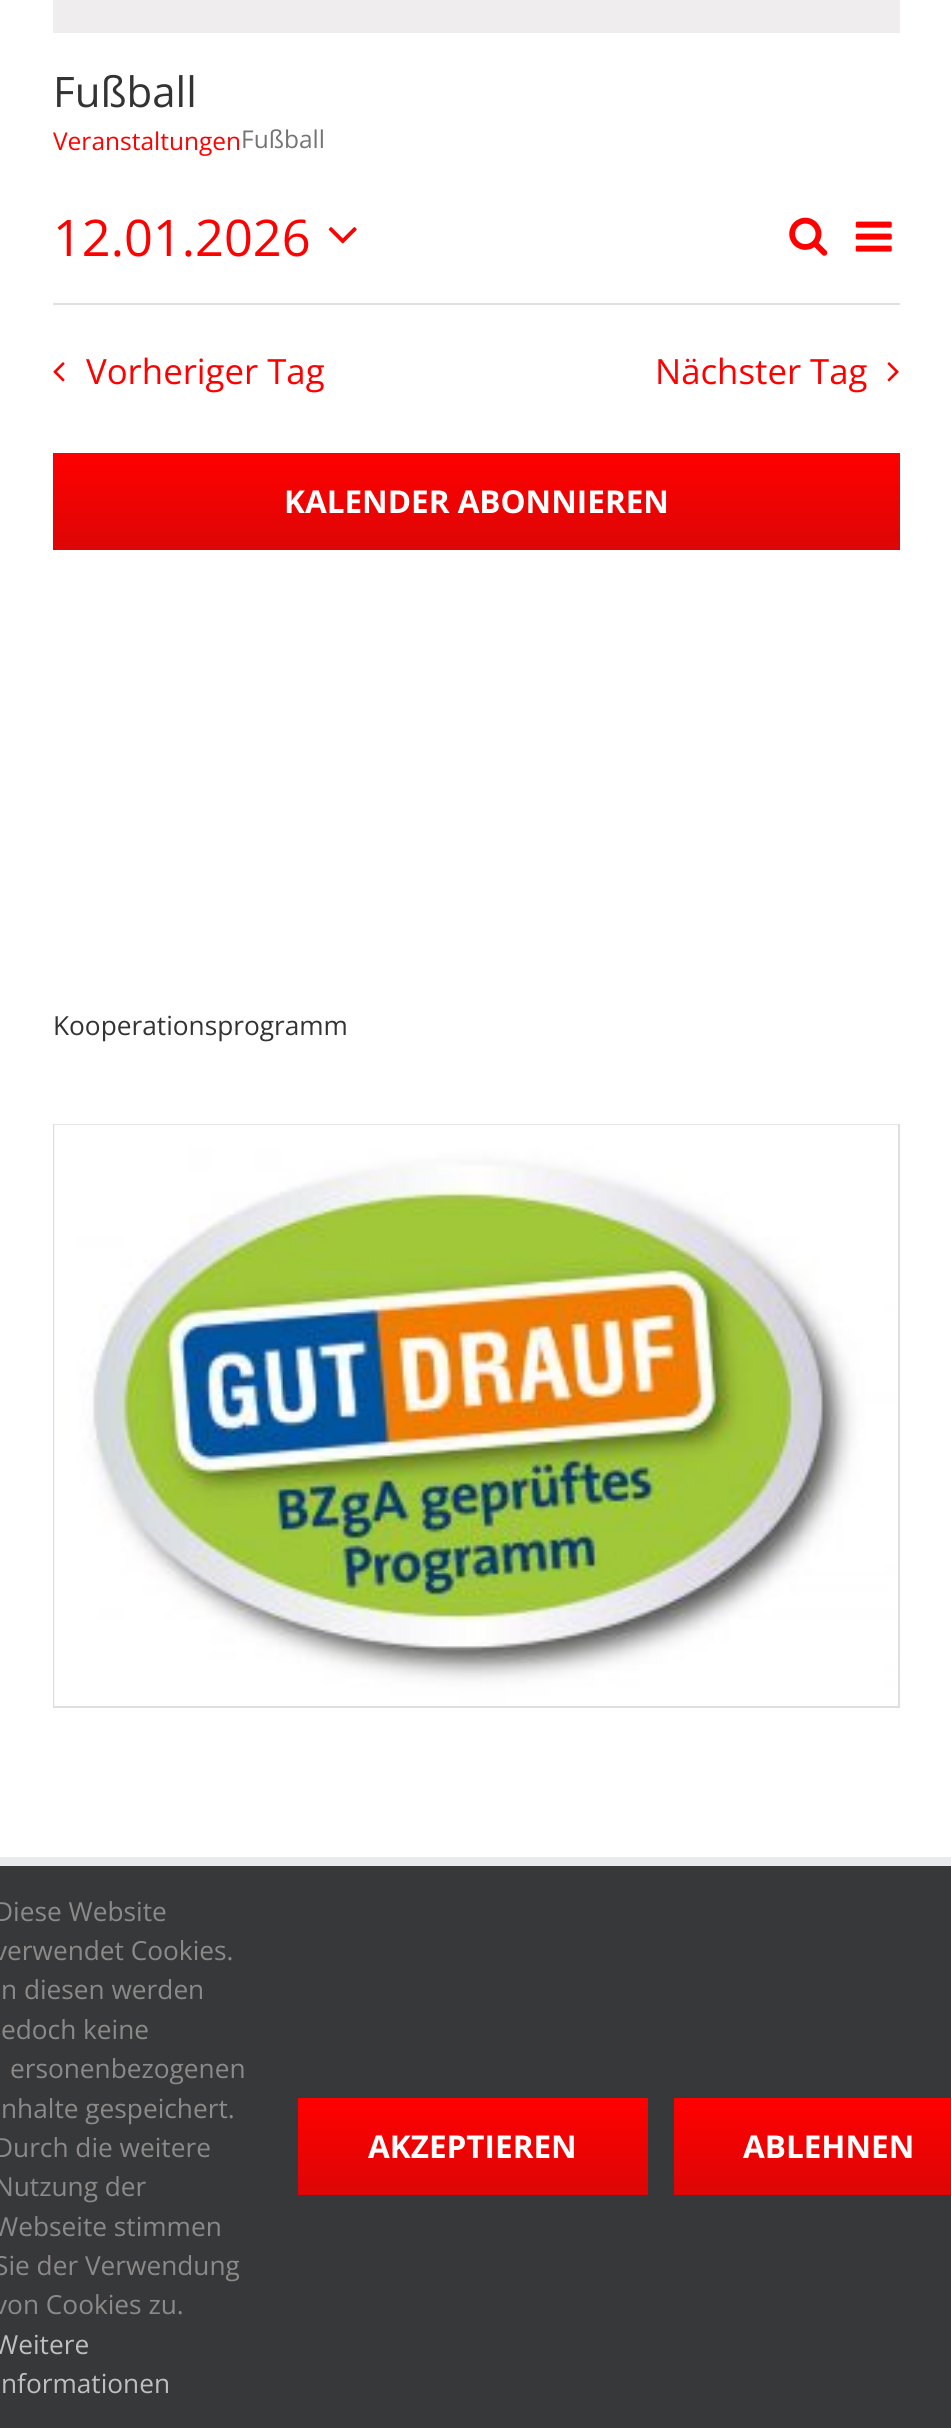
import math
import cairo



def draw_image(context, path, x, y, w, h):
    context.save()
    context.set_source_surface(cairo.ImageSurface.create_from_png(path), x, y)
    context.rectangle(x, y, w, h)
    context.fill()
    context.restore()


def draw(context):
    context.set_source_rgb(1, 1, 1)
    context.paint()
    context.set_source_rgb(239 / 255, 237 / 255, 237 / 255)
    context.rectangle(53, 0, 847, 33)
    context.fill()
    draw_image(context, "images/1.png", 328, 227, 29, 17)
    draw_image(context, "images/2.png", 789, 217, 39, 39)
    draw_image(context, "images/3.png", 855, 221, 37, 31)
    context.set_source_rgb(224 / 255, 222 / 255, 222 / 255)
    context.rectangle(53, 303, 847, 2)
    context.fill()
    draw_image(context, "images/4.png", 53, 362, 12, 20)
    draw_image(context, "images/5.png", 887, 362, 12, 20)
    gradient = cairo.LinearGradient(476, 453, 476, 550)
    gradient.add_color_stop_rgba(0, 1, 0, 0, 1)
    gradient.add_color_stop_rgba(1, 221 / 255, 6 / 255, 6 / 255, 1)
    context.set_source(gradient)
    context.rectangle(53, 453, 847, 97)
    context.fill()
    context.rectangle(54, 1125, 845, 582)
    context.set_source_rgb(224 / 255, 222 / 255, 222 / 255)
    context.stroke()
    draw_image(context, "images/6.png", 54, 1124, 844, 582)
    context.set_source_rgb(233 / 255, 234 / 255, 238 / 255)
    context.rectangle(0, 1857, 951, 9)
    context.fill()
    context.set_source_rgb(54 / 255, 56 / 255, 57 / 255)
    context.rectangle(0, 1866, 951, 562)
    context.fill()
    gradient = cairo.LinearGradient(473, 2098, 473, 2195)
    gradient.add_color_stop_rgba(0, 1, 0, 0, 1)
    gradient.add_color_stop_rgba(1, 221 / 255, 6 / 255, 6 / 255, 1)
    context.set_source(gradient)
    context.rectangle(298, 2098, 350, 97)
    context.fill()
    gradient = cairo.LinearGradient(829, 2098, 829, 2195)
    gradient.add_color_stop_rgba(0, 1, 0, 0, 1)
    gradient.add_color_stop_rgba(1, 221 / 255, 6 / 255, 6 / 255, 1)
    context.set_source(gradient)
    context.rectangle(674, 2098, 277, 97)
    context.fill()
    context.select_font_face("Open Sans")
    context.set_font_size(42)
    context.set_source_rgb(51 / 255, 51 / 255, 51 / 255)
    context.move_to(53, 107)
    context.show_text("Fußball")
    context.set_font_size(24.5)
    context.set_source_rgb(1, 0, 0)
    context.move_to(53, 150)
    context.show_text("Veranstaltungen")
    context.set_source_rgb(116 / 255, 116 / 255, 116 / 255)
    context.move_to(241, 148)
    context.show_text("Fußball")
    context.set_font_size(50.5)
    context.set_source_rgb(1, 0, 0)
    context.move_to(53, 256)
    context.show_text("12.01.2026")
    context.set_font_size(34.75)
    context.move_to(86, 384)
    context.show_text("Vorheriger Tag")
    context.move_to(655, 384)
    context.show_text("Nächster Tag")
    context.select_font_face("Open Sans", cairo.FontSlant.NORMAL, cairo.FontWeight.BOLD)
    context.set_font_size(31.5)
    context.set_source_rgb(1, 1, 1)
    context.move_to(284, 513)
    context.show_text("KALENDER ABONNIEREN")
    context.select_font_face("Open Sans")
    context.set_font_size(26.25)
    context.set_source_rgb(51 / 255, 51 / 255, 51 / 255)
    context.move_to(53, 1035)
    context.show_text("Kooperationsprogramm")
    context.set_source_rgb(140 / 255, 137 / 255, 137 / 255)
    context.move_to(-6, 1921)
    context.show_text("Diese Website")
    context.move_to(-6, 1960)
    context.show_text("verwendet Cookies.")
    context.move_to(1, 1999)
    context.show_text("n diesen werden")
    context.move_to(1, 2039)
    context.show_text("edoch keine")
    context.move_to(10, 2078)
    context.show_text("ersonenbezogenen")
    context.move_to(1, 2118)
    context.show_text("nhalte gespeichert.")
    context.move_to(-6, 2157)
    context.show_text("Durch die weitere")
    context.move_to(-6, 2196)
    context.show_text("Nutzung der")
    context.move_to(-6, 2236)
    context.show_text("Webseite stimmen")
    context.move_to(-6, 2275)
    context.show_text("Sie der Verwendung")
    context.move_to(-6, 2314)
    context.show_text("von Cookies zu.")
    context.set_source_rgb(191 / 255, 191 / 255, 191 / 255)
    context.move_to(-6, 2354)
    context.show_text("Weitere")
    context.move_to(1, 2393)
    context.show_text("nformationen")
    context.select_font_face("Open Sans", cairo.FontSlant.NORMAL, cairo.FontWeight.BOLD)
    context.set_font_size(31.5)
    context.set_source_rgb(1, 1, 1)
    context.move_to(368, 2158)
    context.show_text("AKZEPTIEREN")
    context.move_to(743, 2158)
    context.show_text("ABLEHNEN")


surface = cairo.ImageSurface(cairo.Format.RGB24, 951, 2428)
context = cairo.Context(surface)
options = cairo.FontOptions()
options.set_hint_metrics(cairo.HintMetrics.OFF)
options.set_hint_style(cairo.HintStyle.NONE)
context.set_font_options(options)
context.set_miter_limit(4)
draw(context)
surface.write_to_png("out.png")
